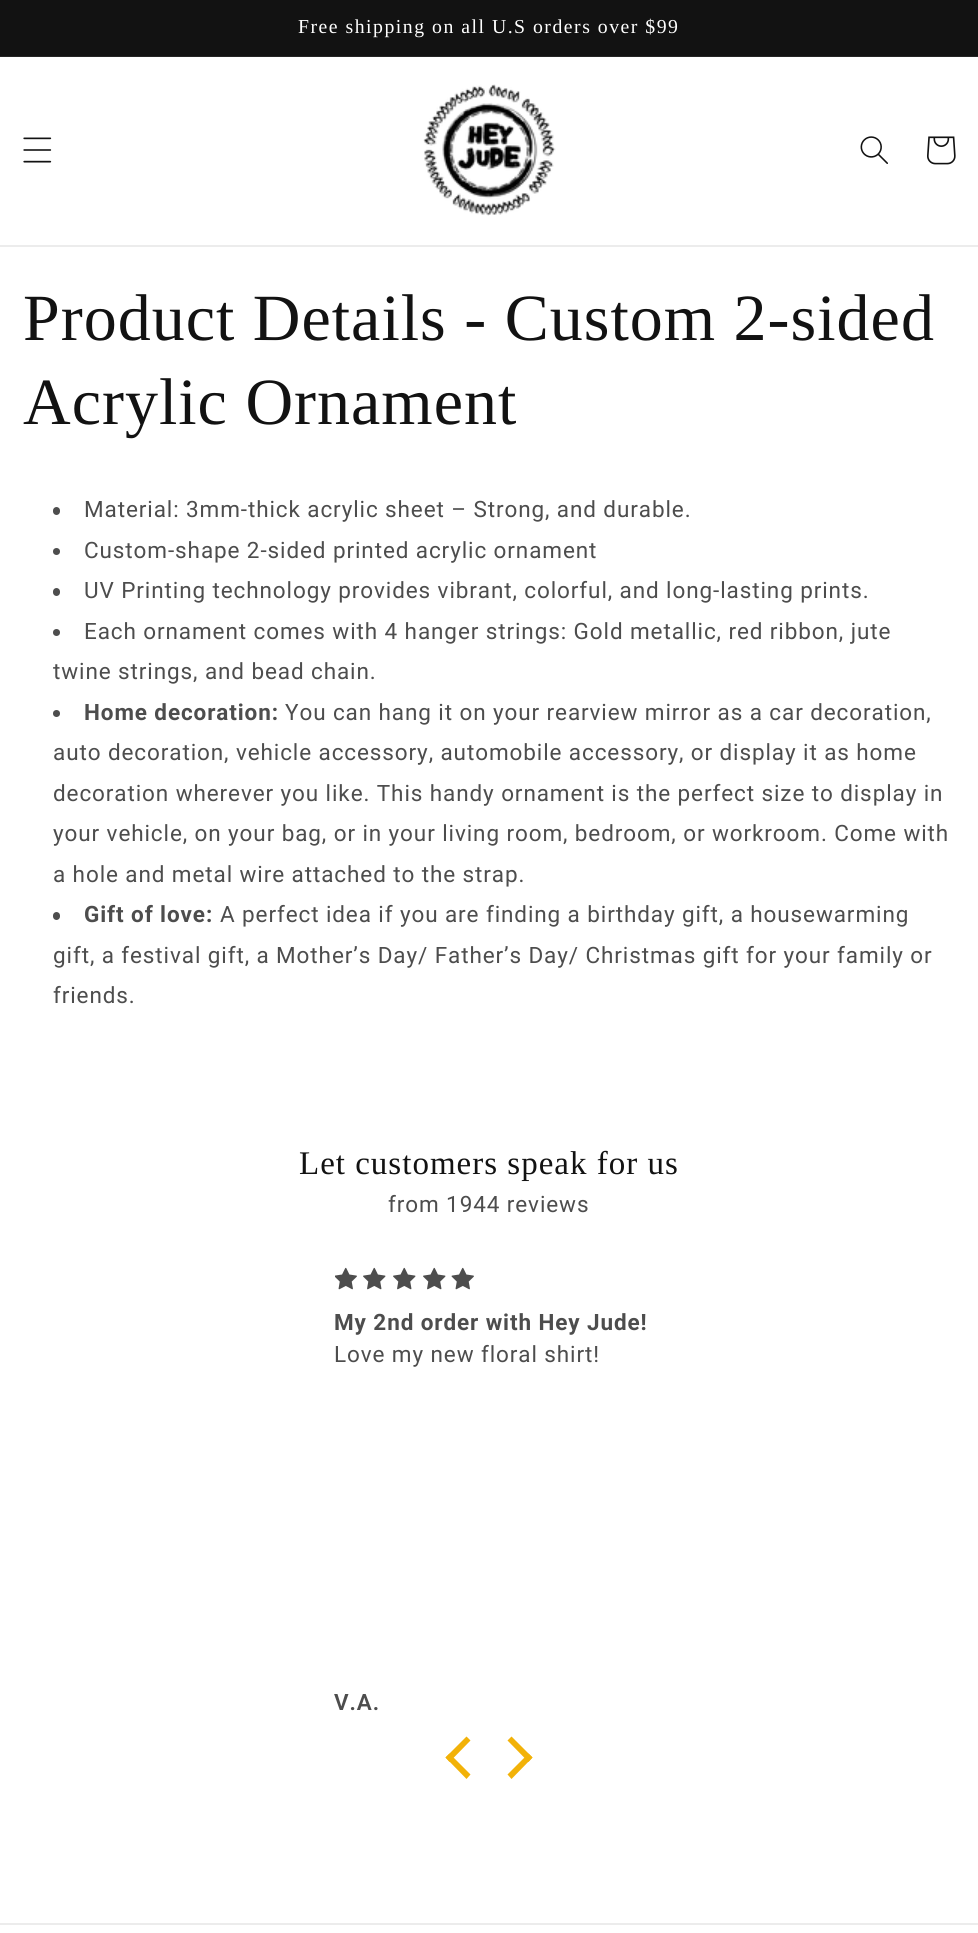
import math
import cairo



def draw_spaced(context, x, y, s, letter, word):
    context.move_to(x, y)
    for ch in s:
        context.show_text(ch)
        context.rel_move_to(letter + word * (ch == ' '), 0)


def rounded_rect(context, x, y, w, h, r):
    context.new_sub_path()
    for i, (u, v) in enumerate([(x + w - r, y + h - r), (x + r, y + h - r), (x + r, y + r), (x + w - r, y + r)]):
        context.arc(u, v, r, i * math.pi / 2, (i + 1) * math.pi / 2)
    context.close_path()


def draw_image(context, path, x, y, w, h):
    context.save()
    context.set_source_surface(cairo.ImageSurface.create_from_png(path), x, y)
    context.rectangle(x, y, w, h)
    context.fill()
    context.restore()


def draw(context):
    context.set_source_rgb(1, 1, 1)
    context.paint()
    context.set_source_rgb(18 / 255, 18 / 255, 18 / 255)
    context.rectangle(0, 0, 978, 56)
    context.fill()
    context.set_source_rgb(37 / 255, 37 / 255, 37 / 255)
    context.rectangle(0, 56, 978, 1)
    context.fill()
    context.set_source_rgb(236 / 255, 236 / 255, 236 / 255)
    context.rectangle(0, 245, 978, 2)
    context.fill()
    draw_image(context, "images/1.png", 23, 137, 29, 26)
    draw_image(context, "images/2.png", 423, 84, 133, 132)
    draw_image(context, "images/3.png", 860, 136, 28, 28)
    draw_image(context, "images/4.png", 927, 136, 29, 29)
    context.set_source_rgb(77 / 255, 77 / 255, 77 / 255)
    rounded_rect(context, 53, 507, 7, 8, 3.5)
    context.fill()
    context.arc(56.5, 551.5, 3.5, 0, 2 * math.pi)
    context.fill()
    rounded_rect(context, 53, 588, 7, 8, 3.5)
    context.fill()
    context.arc(56.5, 632.5, 3.5, 0, 2 * math.pi)
    context.fill()
    context.arc(56.5, 713.5, 3.5, 0, 2 * math.pi)
    context.fill()
    rounded_rect(context, 53, 912, 7, 8, 3.5)
    context.fill()
    draw_image(context, "images/5.png", 335, 1267, 22, 23)
    draw_image(context, "images/6.png", 363, 1267, 23, 23)
    draw_image(context, "images/6.png", 393, 1267, 23, 23)
    draw_image(context, "images/6.png", 423, 1267, 23, 23)
    draw_image(context, "images/7.png", 451, 1267, 23, 23)
    context.set_source_rgb(242 / 255, 178 / 255, 8 / 255)
    context.new_path()
    context.move_to(445.5, 1757.5)
    context.line_to(466.5, 1736.5)
    context.line_to(470.5, 1740.5)
    context.line_to(449.5, 1762)
    context.close_path()
    context.fill()
    context.new_path()
    context.move_to(445.5, 1757.5)
    context.line_to(449.5, 1753.5)
    context.line_to(470.5, 1774.5)
    context.line_to(466.5, 1779)
    context.close_path()
    context.fill()
    context.new_path()
    context.move_to(507.5, 1740.5)
    context.line_to(511.5, 1736.5)
    context.line_to(532.5, 1757.5)
    context.line_to(528.5, 1762)
    context.close_path()
    context.fill()
    context.new_path()
    context.move_to(507.5, 1774.5)
    context.line_to(528.5, 1753.5)
    context.line_to(532.5, 1757.5)
    context.line_to(511.5, 1779)
    context.close_path()
    context.fill()
    context.set_source_rgb(236 / 255, 236 / 255, 236 / 255)
    context.rectangle(0, 1923, 978, 2)
    context.fill()
    context.select_font_face("Liberation Serif")
    context.set_font_size(19.75)
    context.set_source_rgb(1, 1, 1)
    draw_spaced(context, 298, 33, "Free shipping on all U.S orders over $99", 1.5, 0)
    context.set_font_size(66)
    context.set_source_rgb(18 / 255, 18 / 255, 18 / 255)
    draw_spaced(context, 23, 340, "Product Details - Custom 2-sided", 1, 0)
    draw_spaced(context, 23, 424, "Acrylic Ornament", 1, 0)
    context.select_font_face("Roboto")
    context.set_font_size(22.5)
    context.set_source_rgb(77 / 255, 77 / 255, 77 / 255)
    draw_spaced(context, 84, 517, "Material: 3mm-thick acrylic sheet – Strong, and durable.", 0.9, 0)
    draw_spaced(context, 84, 558, "Custom-shape 2-sided printed acrylic ornament", 0.9, 0)
    draw_spaced(context, 84, 598, "UV Printing technology provides vibrant, colorful, and long-lasting prints.", 0.9, 0)
    draw_spaced(context, 84, 639, "Each ornament comes with 4 hanger strings: Gold metallic, red ribbon, jute", 0.9, 0)
    draw_spaced(context, 53, 679, "twine strings, and bead chain.", 0.9, 0)
    context.select_font_face("Roboto", cairo.FontSlant.NORMAL, cairo.FontWeight.BOLD)
    draw_spaced(context, 84, 720, "Home decoration:", 0.9, 0)
    context.select_font_face("Roboto")
    draw_spaced(context, 285, 720, "You can hang it on your rearview mirror as a car decoration,", 0.9, 0)
    draw_spaced(context, 53, 760, "auto decoration, vehicle accessory, automobile accessory, or display it as home", 0.9, 0)
    draw_spaced(context, 53, 801, "decoration wherever you like. This handy ornament is the perfect size to display in", 0.9, 0)
    draw_spaced(context, 53, 841, "your vehicle, on your bag, or in your living room, bedroom, or workroom. Come with", 0.9, 0)
    draw_spaced(context, 53, 882, "a hole and metal wire attached to the strap.", 0.9, 0)
    context.select_font_face("Roboto", cairo.FontSlant.NORMAL, cairo.FontWeight.BOLD)
    draw_spaced(context, 84, 922, "Gift of love:", 0.9, 0)
    context.select_font_face("Roboto")
    draw_spaced(context, 220, 922, "A perfect idea if you are finding a birthday gift, a housewarming", 0.9, 0)
    draw_spaced(context, 53, 963, "gift, a festival gift, a Mother’s Day/ Father’s Day/ Christmas gift for your family or", 0.9, 0)
    draw_spaced(context, 53, 1003, "friends.", 0.9, 0)
    context.select_font_face("Liberation Serif")
    context.set_font_size(33)
    context.set_source_rgb(18 / 255, 18 / 255, 18 / 255)
    draw_spaced(context, 299, 1174, "Let customers speak for us", 1, 0)
    context.select_font_face("Roboto")
    context.set_font_size(22.5)
    context.set_source_rgb(77 / 255, 77 / 255, 77 / 255)
    draw_spaced(context, 388, 1212, "from 1944 reviews", 0.9, 0)
    context.select_font_face("Roboto", cairo.FontSlant.NORMAL, cairo.FontWeight.BOLD)
    draw_spaced(context, 334, 1330, "My 2nd order with Hey Jude!", 0.9, 0)
    context.select_font_face("Roboto")
    draw_spaced(context, 334, 1362, "Love my new floral shirt!", 0.9, 0)
    context.select_font_face("Roboto SemiBold")
    draw_spaced(context, 334, 1710, "V.A.", 0.9, 0)


surface = cairo.ImageSurface(cairo.Format.RGB24, 978, 1933)
context = cairo.Context(surface)
options = cairo.FontOptions()
options.set_hint_metrics(cairo.HintMetrics.OFF)
options.set_hint_style(cairo.HintStyle.NONE)
context.set_font_options(options)
context.set_miter_limit(4)
draw(context)
surface.write_to_png("out.png")
